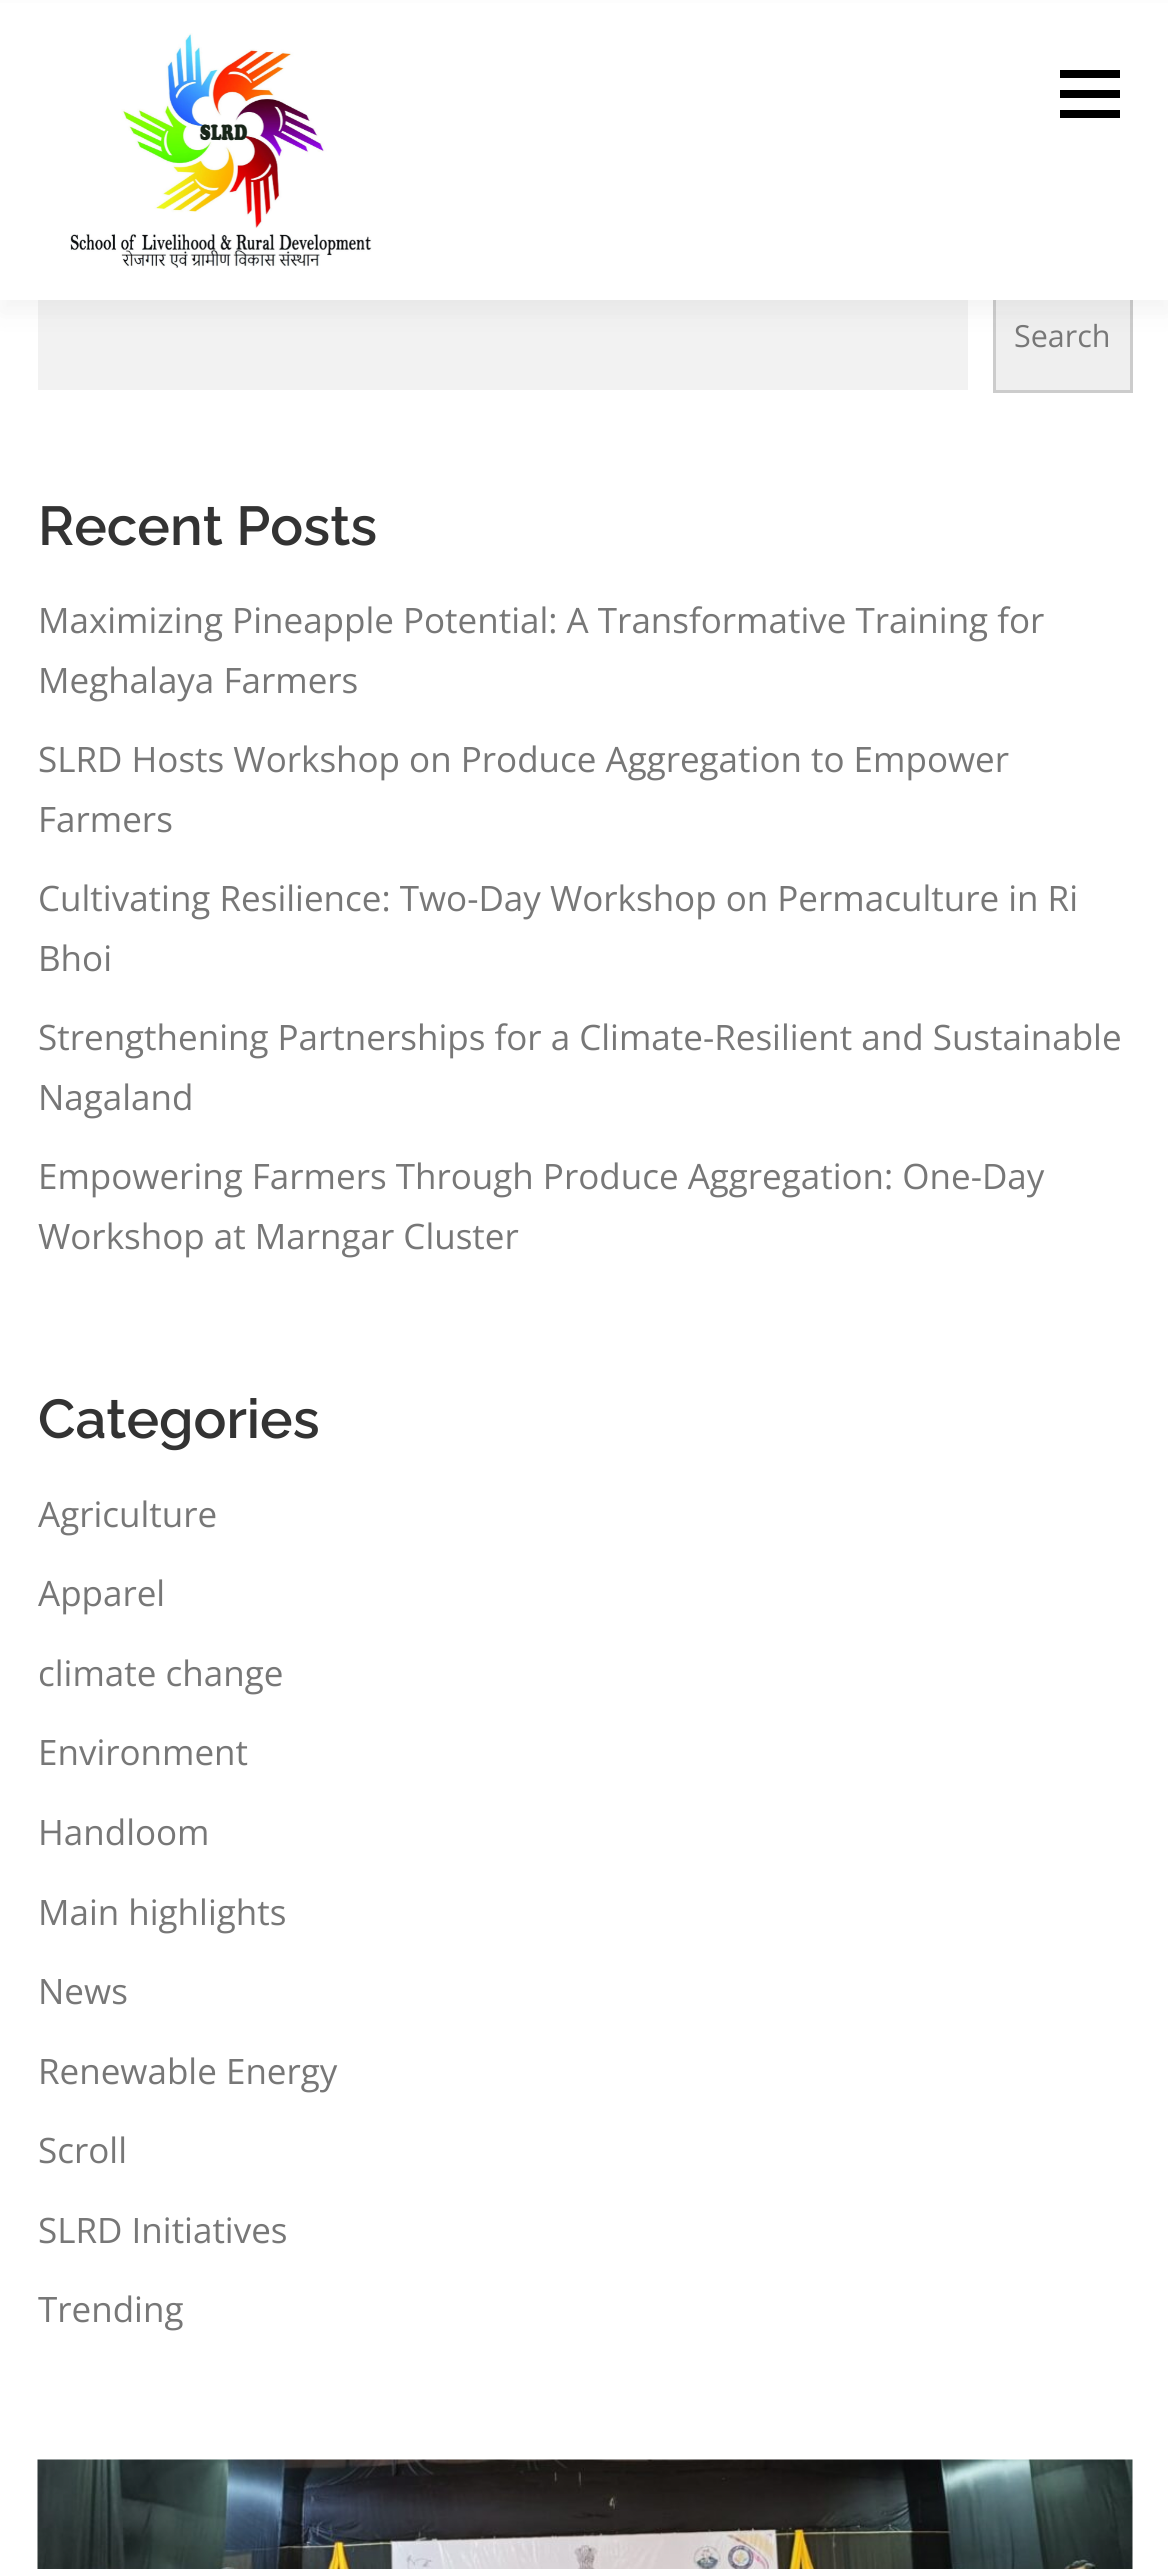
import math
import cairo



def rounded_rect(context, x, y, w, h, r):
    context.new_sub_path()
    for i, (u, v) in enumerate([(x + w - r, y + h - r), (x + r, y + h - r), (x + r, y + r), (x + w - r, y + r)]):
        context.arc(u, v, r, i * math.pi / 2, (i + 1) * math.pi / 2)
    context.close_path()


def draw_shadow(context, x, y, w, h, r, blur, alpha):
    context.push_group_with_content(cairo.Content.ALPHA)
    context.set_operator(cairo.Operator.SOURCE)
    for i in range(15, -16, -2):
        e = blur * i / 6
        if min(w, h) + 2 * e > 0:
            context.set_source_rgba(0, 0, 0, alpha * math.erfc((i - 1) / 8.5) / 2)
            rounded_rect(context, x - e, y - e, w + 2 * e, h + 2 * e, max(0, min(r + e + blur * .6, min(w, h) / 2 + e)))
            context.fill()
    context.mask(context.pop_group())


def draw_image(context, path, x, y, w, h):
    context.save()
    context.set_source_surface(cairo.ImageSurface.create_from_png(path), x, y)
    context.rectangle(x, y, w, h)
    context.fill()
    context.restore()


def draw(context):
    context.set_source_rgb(1, 1, 1)
    context.paint()
    context.set_source_rgb(242 / 255, 242 / 255, 242 / 255)
    context.rectangle(38, 300, 930, 90)
    context.fill()
    context.set_source_rgb(239 / 255, 239 / 255, 239 / 255)
    context.rectangle(996, 300, 134, 90)
    context.fill()
    context.rectangle(994.5, 286.5, 137, 105)
    context.set_source_rgb(204 / 255, 204 / 255, 204 / 255)
    context.set_line_width(3)
    context.stroke()
    context.set_source_rgb(50 / 255, 50 / 255, 50 / 255)
    draw_shadow(context, 0, 13, 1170, 300, 0, 12.5, 0.06)
    context.set_source_rgb(1, 1, 1)
    context.rectangle(0, 3, 1168, 297)
    context.fill()
    draw_image(context, "images/1.png", 70, 33, 302, 235)
    context.set_source_rgb(0, 0, 0)
    context.rectangle(1060, 90, 60, 8)
    context.fill()
    context.rectangle(1060, 70, 60, 8)
    context.fill()
    context.rectangle(1060, 110, 60, 8)
    context.fill()
    draw_image(context, "images/2.png", 37, 2459, 1096, 110)
    context.select_font_face("Open Sans")
    context.set_font_size(30.5)
    context.set_source_rgb(119 / 255, 119 / 255, 119 / 255)
    context.move_to(1014, 347)
    context.show_text("Search")
    context.select_font_face("Raleway SemiBold")
    context.set_font_size(54.75)
    context.set_source_rgb(51 / 255, 51 / 255, 51 / 255)
    context.move_to(38, 545)
    context.show_text("Recent Posts")
    context.select_font_face("Open Sans")
    context.set_font_size(35)
    context.set_source_rgb(119 / 255, 119 / 255, 119 / 255)
    context.move_to(38, 633)
    context.show_text("Maximizing Pineapple Potential: A Transformative Training for")
    context.move_to(38, 693)
    context.show_text("Meghalaya Farmers")
    context.move_to(38, 772)
    context.show_text("SLRD Hosts Workshop on Produce Aggregation to Empower")
    context.move_to(38, 832)
    context.show_text("Farmers")
    context.move_to(38, 911)
    context.show_text("Cultivating Resilience: Two-Day Workshop on Permaculture in Ri")
    context.move_to(38, 971)
    context.show_text("Bhoi")
    context.move_to(38, 1050)
    context.show_text("Strengthening Partnerships for a Climate-Resilient and Sustainable")
    context.move_to(38, 1110)
    context.show_text("Nagaland")
    context.move_to(38, 1189)
    context.show_text("Empowering Farmers Through Produce Aggregation: One-Day")
    context.move_to(38, 1249)
    context.show_text("Workshop at Marngar Cluster")
    context.select_font_face("Raleway SemiBold")
    context.set_font_size(54.75)
    context.set_source_rgb(51 / 255, 51 / 255, 51 / 255)
    context.move_to(38, 1438)
    context.show_text("Categories")
    context.select_font_face("Open Sans")
    context.set_font_size(35)
    context.set_source_rgb(119 / 255, 119 / 255, 119 / 255)
    context.move_to(38, 1527)
    context.show_text("Agriculture")
    context.move_to(38, 1606)
    context.show_text("Apparel")
    context.move_to(38, 1686)
    context.show_text("climate change")
    context.move_to(38, 1765)
    context.show_text("Environment")
    context.move_to(38, 1845)
    context.show_text("Handloom")
    context.move_to(38, 1925)
    context.show_text("Main highlights")
    context.move_to(38, 2004)
    context.show_text("News")
    context.move_to(38, 2084)
    context.show_text("Renewable Energy")
    context.move_to(38, 2163)
    context.show_text("Scroll")
    context.move_to(38, 2243)
    context.show_text("SLRD Initiatives")
    context.move_to(38, 2322)
    context.show_text("Trending")


surface = cairo.ImageSurface(cairo.Format.RGB24, 1168, 2569)
context = cairo.Context(surface)
options = cairo.FontOptions()
options.set_hint_metrics(cairo.HintMetrics.OFF)
options.set_hint_style(cairo.HintStyle.NONE)
context.set_font_options(options)
context.set_miter_limit(4)
draw(context)
surface.write_to_png("out.png")
